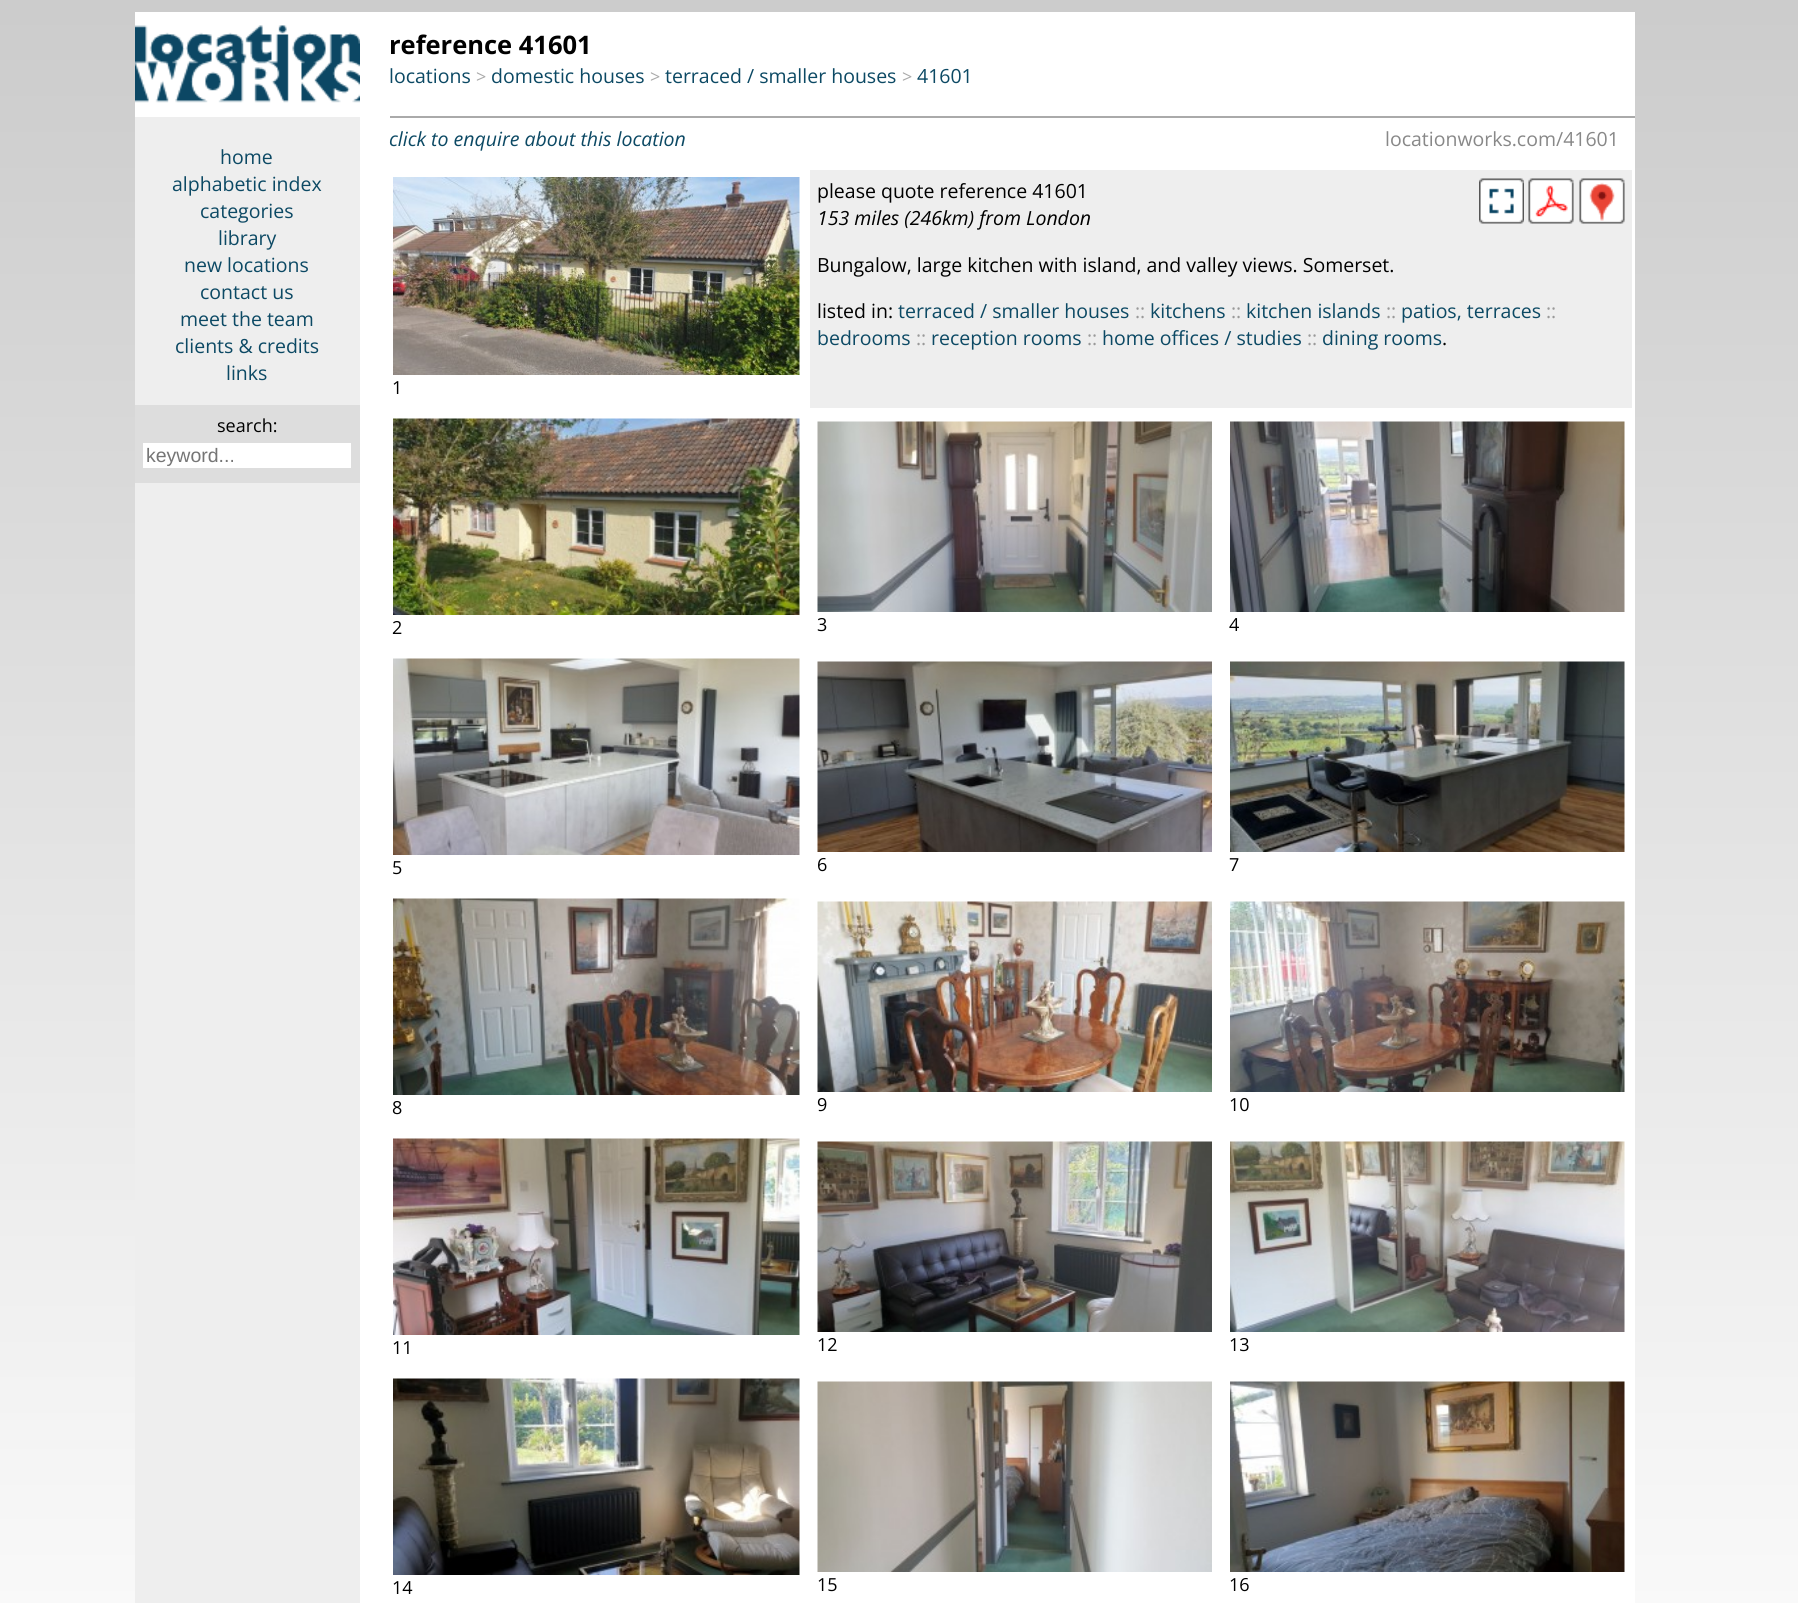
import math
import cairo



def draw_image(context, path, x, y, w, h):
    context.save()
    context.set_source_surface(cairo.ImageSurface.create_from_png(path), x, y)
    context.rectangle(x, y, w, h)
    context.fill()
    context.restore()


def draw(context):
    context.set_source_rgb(1, 1, 1)
    context.paint()
    draw_image(context, "images/1.png", 0, 0, 1798, 1603)
    context.set_source_rgb(1, 1, 1)
    context.rectangle(360, 12, 1275, 1591)
    context.fill()
    context.set_source_rgb(238 / 255, 238 / 255, 238 / 255)
    context.rectangle(135, 117, 225, 1486)
    context.fill()
    draw_image(context, "images/2.png", 135, 12, 225, 105)
    context.set_source_rgb(221 / 255, 221 / 255, 221 / 255)
    context.rectangle(135, 405, 225, 78)
    context.fill()
    context.set_source_rgb(1, 1, 1)
    context.rectangle(143, 443, 208, 25)
    context.fill()
    context.set_source_rgb(170 / 255, 170 / 255, 170 / 255)
    context.rectangle(390, 116, 1245, 2)
    context.fill()
    context.set_source_rgb(238 / 255, 238 / 255, 238 / 255)
    context.rectangle(810, 170, 822, 238)
    context.fill()
    draw_image(context, "images/3.png", 1479, 178, 45, 46)
    draw_image(context, "images/4.png", 1528, 178, 46, 46)
    draw_image(context, "images/5.png", 1579, 178, 46, 46)
    draw_image(context, "images/6.png", 393, 177, 407, 198)
    draw_image(context, "images/7.png", 393, 418, 407, 197)
    draw_image(context, "images/8.png", 817, 421, 395, 191)
    draw_image(context, "images/9.png", 1230, 421, 395, 191)
    draw_image(context, "images/10.png", 393, 658, 407, 197)
    draw_image(context, "images/11.png", 817, 661, 395, 191)
    draw_image(context, "images/12.png", 1230, 661, 395, 191)
    draw_image(context, "images/13.png", 393, 898, 407, 197)
    draw_image(context, "images/14.png", 817, 901, 395, 191)
    draw_image(context, "images/15.png", 1230, 901, 395, 191)
    draw_image(context, "images/16.png", 393, 1138, 407, 197)
    draw_image(context, "images/17.png", 817, 1141, 395, 191)
    draw_image(context, "images/18.png", 1230, 1141, 395, 191)
    draw_image(context, "images/19.png", 393, 1378, 407, 197)
    draw_image(context, "images/20.png", 817, 1381, 395, 191)
    draw_image(context, "images/21.png", 1230, 1381, 395, 191)
    context.select_font_face("Open Sans")
    context.set_font_size(19.5)
    context.set_source_rgb(12 / 255, 73 / 255, 100 / 255)
    context.move_to(220, 164)
    context.show_text("home")
    context.move_to(172, 191)
    context.show_text("alphabetic index")
    context.move_to(200, 218)
    context.show_text("categories")
    context.move_to(218, 245)
    context.show_text("library")
    context.move_to(184, 272)
    context.show_text("new locations")
    context.move_to(200, 299)
    context.show_text("contact us")
    context.move_to(180, 326)
    context.show_text("meet the team")
    context.move_to(175, 353)
    context.show_text("clients & credits")
    context.move_to(226, 380)
    context.show_text("links")
    context.set_font_size(18)
    context.set_source_rgb(0, 0, 0)
    context.move_to(217, 432)
    context.show_text("search:")
    context.select_font_face("Liberation Sans")
    context.set_font_size(19.5)
    context.set_source_rgb(117 / 255, 117 / 255, 117 / 255)
    context.move_to(146, 462)
    context.show_text("keyword...")
    context.select_font_face("Open Sans", cairo.FontSlant.NORMAL, cairo.FontWeight.BOLD)
    context.set_font_size(25.5)
    context.set_source_rgb(0, 0, 0)
    context.move_to(389, 54)
    context.show_text("reference 41601")
    context.select_font_face("Open Sans")
    context.set_font_size(19.5)
    context.set_source_rgb(12 / 255, 73 / 255, 100 / 255)
    context.move_to(389, 83)
    context.show_text("locations")
    context.set_font_size(18)
    context.set_source_rgb(170 / 255, 170 / 255, 170 / 255)
    context.move_to(476, 83)
    context.show_text(">")
    context.set_font_size(19.5)
    context.set_source_rgb(12 / 255, 73 / 255, 100 / 255)
    context.move_to(491, 83)
    context.show_text("domestic houses")
    context.set_font_size(18)
    context.set_source_rgb(170 / 255, 170 / 255, 170 / 255)
    context.move_to(650, 83)
    context.show_text(">")
    context.set_font_size(19.5)
    context.set_source_rgb(12 / 255, 73 / 255, 100 / 255)
    context.move_to(665, 83)
    context.show_text("terraced / smaller houses")
    context.set_font_size(18)
    context.set_source_rgb(170 / 255, 170 / 255, 170 / 255)
    context.move_to(902, 83)
    context.show_text(">")
    context.set_font_size(19.5)
    context.set_source_rgb(12 / 255, 73 / 255, 100 / 255)
    context.move_to(917, 83)
    context.show_text("41601")
    context.select_font_face("Open Sans", cairo.FontSlant.ITALIC)
    context.move_to(389, 146)
    context.show_text("click to enquire about this location")
    context.select_font_face("Open Sans")
    context.set_source_rgb(136 / 255, 136 / 255, 136 / 255)
    context.move_to(1385, 146)
    context.show_text("locationworks.com/41601")
    context.set_source_rgb(0, 0, 0)
    context.move_to(817, 198)
    context.show_text("please quote reference 41601")
    context.select_font_face("Open Sans", cairo.FontSlant.ITALIC)
    context.move_to(817, 225)
    context.show_text("153 miles (246km) from London")
    context.select_font_face("Open Sans")
    context.move_to(817, 272)
    context.show_text("Bungalow, large kitchen with island, and valley views. Somerset.")
    context.move_to(817, 318)
    context.show_text("listed in:")
    context.set_source_rgb(12 / 255, 73 / 255, 100 / 255)
    context.move_to(898, 318)
    context.show_text("terraced / smaller houses")
    context.set_source_rgb(153 / 255, 153 / 255, 153 / 255)
    context.move_to(1135, 318)
    context.show_text("::")
    context.set_source_rgb(12 / 255, 73 / 255, 100 / 255)
    context.move_to(1150, 318)
    context.show_text("kitchens")
    context.set_source_rgb(153 / 255, 153 / 255, 153 / 255)
    context.move_to(1231, 318)
    context.show_text("::")
    context.set_source_rgb(12 / 255, 73 / 255, 100 / 255)
    context.move_to(1246, 318)
    context.show_text("kitchen islands")
    context.set_source_rgb(153 / 255, 153 / 255, 153 / 255)
    context.move_to(1386, 318)
    context.show_text("::")
    context.set_source_rgb(12 / 255, 73 / 255, 100 / 255)
    context.move_to(1401, 318)
    context.show_text("patios, terraces")
    context.set_source_rgb(153 / 255, 153 / 255, 153 / 255)
    context.move_to(1546, 318)
    context.show_text("::")
    context.set_source_rgb(12 / 255, 73 / 255, 100 / 255)
    context.move_to(817, 345)
    context.show_text("bedrooms")
    context.set_source_rgb(153 / 255, 153 / 255, 153 / 255)
    context.move_to(916, 345)
    context.show_text("::")
    context.set_source_rgb(12 / 255, 73 / 255, 100 / 255)
    context.move_to(931, 345)
    context.show_text("reception rooms")
    context.set_source_rgb(153 / 255, 153 / 255, 153 / 255)
    context.move_to(1087, 345)
    context.show_text("::")
    context.set_source_rgb(12 / 255, 73 / 255, 100 / 255)
    context.move_to(1102, 345)
    context.show_text("home offices / studies")
    context.set_source_rgb(153 / 255, 153 / 255, 153 / 255)
    context.move_to(1307, 345)
    context.show_text("::")
    context.set_source_rgb(12 / 255, 73 / 255, 100 / 255)
    context.move_to(1322, 345)
    context.show_text("dining rooms")
    context.set_source_rgb(0, 0, 0)
    context.move_to(1442, 345)
    context.show_text(".")
    context.set_font_size(18)
    context.move_to(392, 394)
    context.show_text("1")
    context.move_to(392, 634)
    context.show_text("2")
    context.move_to(817, 631)
    context.show_text("3")
    context.move_to(1229, 631)
    context.show_text("4")
    context.move_to(392, 874)
    context.show_text("5")
    context.move_to(817, 871)
    context.show_text("6")
    context.move_to(1229, 871)
    context.show_text("7")
    context.move_to(392, 1114)
    context.show_text("8")
    context.move_to(817, 1111)
    context.show_text("9")
    context.move_to(1229, 1111)
    context.show_text("10")
    context.move_to(392, 1354)
    context.show_text("11")
    context.move_to(817, 1351)
    context.show_text("12")
    context.move_to(1229, 1351)
    context.show_text("13")
    context.move_to(392, 1594)
    context.show_text("14")
    context.move_to(817, 1591)
    context.show_text("15")
    context.move_to(1229, 1591)
    context.show_text("16")


surface = cairo.ImageSurface(cairo.Format.RGB24, 1798, 1603)
context = cairo.Context(surface)
options = cairo.FontOptions()
options.set_hint_metrics(cairo.HintMetrics.OFF)
options.set_hint_style(cairo.HintStyle.NONE)
context.set_font_options(options)
context.set_miter_limit(4)
draw(context)
surface.write_to_png("out.png")
